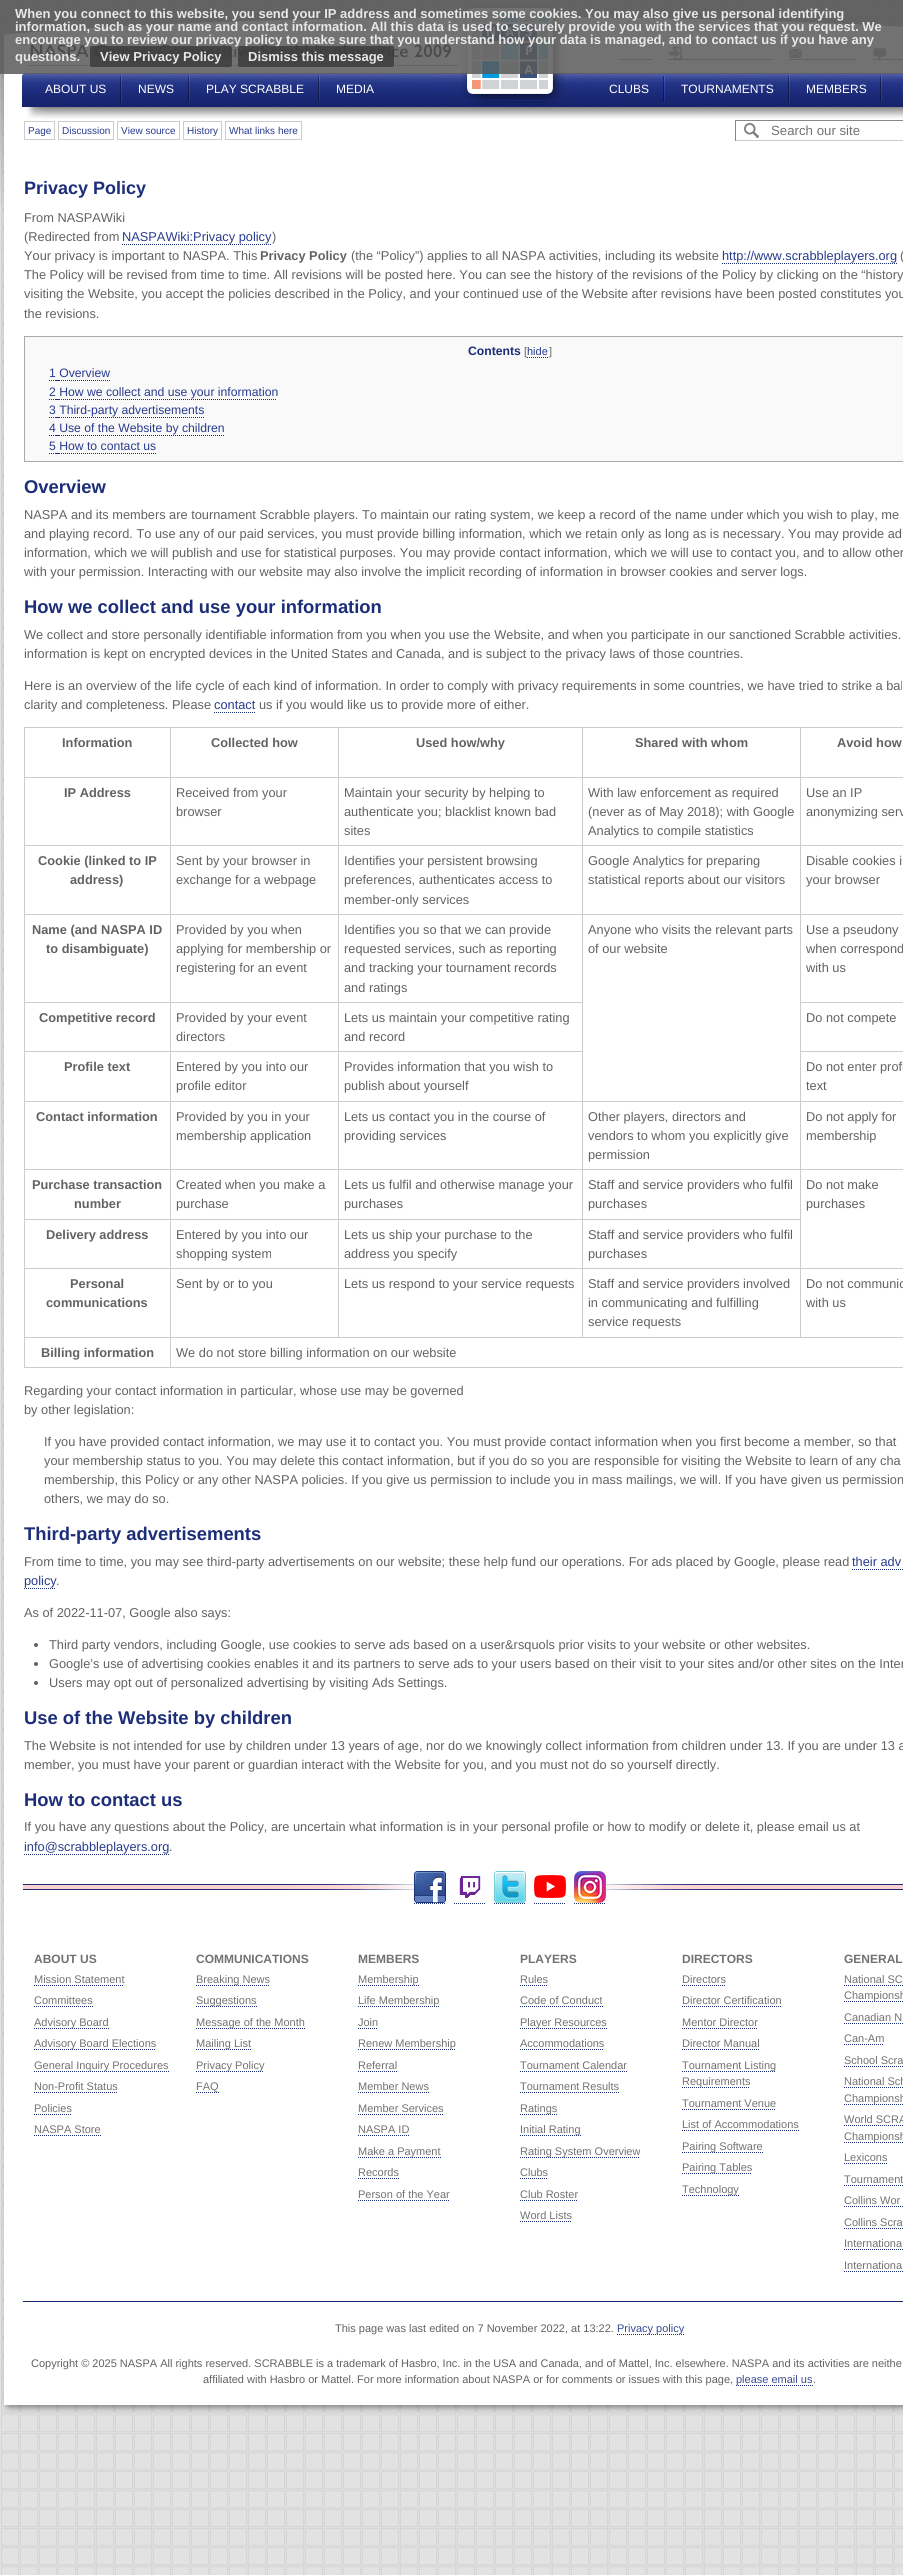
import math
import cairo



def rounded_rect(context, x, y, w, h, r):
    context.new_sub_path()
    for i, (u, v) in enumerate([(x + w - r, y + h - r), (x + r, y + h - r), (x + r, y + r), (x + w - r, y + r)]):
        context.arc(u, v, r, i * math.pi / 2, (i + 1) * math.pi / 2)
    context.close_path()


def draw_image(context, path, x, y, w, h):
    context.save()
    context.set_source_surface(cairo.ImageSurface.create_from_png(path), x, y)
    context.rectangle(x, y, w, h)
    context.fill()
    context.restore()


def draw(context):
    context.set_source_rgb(226 / 255, 226 / 255, 226 / 255)
    context.paint()
    draw_image(context, "images/1.png", 1, 1, 902, 2574)
    draw_image(context, "images/2.png", 0, 0, 903, 205)
    draw_image(context, "images/3.png", 1, 3, 902, 117)
    draw_image(context, "images/4.png", 669, 47, 13, 13)
    draw_image(context, "images/5.png", 789, 49, 13, 9)
    draw_image(context, "images/6.png", 873, 48, 13, 12)
    context.new_path()
    context.move_to(620, 59.5)
    context.line_to(652, 59.5)
    context.set_source_rgb(29 / 255, 46 / 255, 121 / 255)
    context.set_line_width(1)
    context.set_dash([1, 1])
    context.stroke()
    context.new_path()
    context.move_to(669, 59.5)
    context.line_to(773, 59.5)
    context.stroke()
    context.new_path()
    context.move_to(789, 59.5)
    context.line_to(856, 59.5)
    context.stroke()
    context.new_path()
    context.move_to(873, 59.5)
    context.line_to(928, 59.5)
    context.stroke()
    context.new_path()
    context.move_to(29, 65.5)
    context.line_to(459, 65.5)
    context.stroke()
    context.set_source_rgba(90 / 255, 90 / 255, 90 / 255, 0.85)
    context.rectangle(0, 0, 903, 74)
    context.fill()
    draw_image(context, "images/7.png", 120, 76, 2, 26)
    context.new_path()
    context.move_to(29, 102.5)
    context.line_to(122, 102.5)
    context.set_source_rgb(29 / 255, 46 / 255, 121 / 255)
    context.stroke()
    draw_image(context, "images/7.png", 188, 76, 2, 26)
    context.new_path()
    context.move_to(122, 102.5)
    context.line_to(190, 102.5)
    context.stroke()
    draw_image(context, "images/7.png", 318, 76, 2, 26)
    context.new_path()
    context.move_to(190, 102.5)
    context.line_to(320, 102.5)
    context.stroke()
    context.new_path()
    context.move_to(320, 102.5)
    context.line_to(390, 102.5)
    context.stroke()
    draw_image(context, "images/7.png", 663, 76, 2, 26)
    context.new_path()
    context.move_to(593, 102.5)
    context.line_to(665, 102.5)
    context.stroke()
    draw_image(context, "images/7.png", 788, 76, 2, 26)
    context.new_path()
    context.move_to(665, 102.5)
    context.line_to(790, 102.5)
    context.stroke()
    draw_image(context, "images/7.png", 880, 76, 2, 26)
    context.new_path()
    context.move_to(790, 102.5)
    context.line_to(882, 102.5)
    context.stroke()
    context.new_path()
    context.move_to(882, 102.5)
    context.line_to(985, 102.5)
    context.stroke()
    context.new_path()
    context.move_to(460, 100.5)
    context.line_to(560, 100.5)
    context.stroke()
    draw_image(context, "images/8.png", 1, 120, 902, 2278)
    context.rectangle(24.5, 121.5, 30, 18)
    context.set_source_rgb(204 / 255, 204 / 255, 204 / 255)
    context.set_dash([])
    context.stroke()
    context.rectangle(58.5, 121.5, 55, 18)
    context.stroke()
    context.rectangle(117.5, 121.5, 62, 18)
    context.stroke()
    context.rectangle(183.5, 121.5, 38, 18)
    context.stroke()
    context.rectangle(225.5, 121.5, 76, 18)
    context.stroke()
    draw_image(context, "images/9.png", 744, 123, 15, 15)
    context.set_source_rgb(136 / 255, 136 / 255, 136 / 255)
    context.rectangle(735, 120, 168, 1)
    context.fill()
    context.set_source_rgb(204 / 255, 204 / 255, 204 / 255)
    context.rectangle(735, 140, 168, 1)
    context.fill()
    context.set_source_rgb(136 / 255, 136 / 255, 136 / 255)
    context.rectangle(735, 120, 1, 21)
    context.fill()
    context.new_path()
    context.move_to(122, 244.5)
    context.line_to(272, 244.5)
    context.set_source_rgb(29 / 255, 46 / 255, 121 / 255)
    context.set_dash([1, 1])
    context.stroke()
    context.new_path()
    context.move_to(722, 263.5)
    context.line_to(897, 263.5)
    context.stroke()
    context.set_source_rgb(249 / 255, 249 / 255, 249 / 255)
    context.rectangle(24.5, 336.5, 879, 125)
    context.fill_preserve()
    context.set_source_rgb(170 / 255, 170 / 255, 170 / 255)
    context.set_dash([])
    context.stroke()
    context.new_path()
    context.move_to(527, 357.5)
    context.line_to(549, 357.5)
    context.set_source_rgb(29 / 255, 46 / 255, 121 / 255)
    context.set_dash([1, 1])
    context.stroke()
    context.new_path()
    context.move_to(49, 380.5)
    context.line_to(50, 380.5)
    context.move_to(51, 380.5)
    context.line_to(52, 380.5)
    context.move_to(53, 380.5)
    context.line_to(54, 380.5)
    context.move_to(55, 380.5)
    context.line_to(56, 380.5)
    context.set_dash([])
    context.stroke()
    context.rectangle(56, 380, 3, 1)
    context.fill()
    context.new_path()
    context.move_to(59, 380.5)
    context.line_to(110, 380.5)
    context.set_dash([1, 1])
    context.stroke()
    context.new_path()
    context.move_to(49, 399.5)
    context.line_to(50, 399.5)
    context.move_to(51, 399.5)
    context.line_to(52, 399.5)
    context.move_to(53, 399.5)
    context.line_to(54, 399.5)
    context.move_to(55, 399.5)
    context.line_to(56, 399.5)
    context.set_dash([])
    context.stroke()
    context.rectangle(56, 399, 3, 1)
    context.fill()
    context.new_path()
    context.move_to(59, 399.5)
    context.line_to(277, 399.5)
    context.set_dash([1, 1])
    context.stroke()
    context.new_path()
    context.move_to(49, 417.5)
    context.line_to(50, 417.5)
    context.move_to(51, 417.5)
    context.line_to(52, 417.5)
    context.move_to(53, 417.5)
    context.line_to(54, 417.5)
    context.move_to(55, 417.5)
    context.line_to(56, 417.5)
    context.set_dash([])
    context.stroke()
    context.rectangle(56, 417, 3, 1)
    context.fill()
    context.new_path()
    context.move_to(59, 417.5)
    context.line_to(204, 417.5)
    context.set_dash([1, 1])
    context.stroke()
    context.new_path()
    context.move_to(49, 435.5)
    context.line_to(50, 435.5)
    context.move_to(51, 435.5)
    context.line_to(52, 435.5)
    context.move_to(53, 435.5)
    context.line_to(54, 435.5)
    context.move_to(55, 435.5)
    context.line_to(56, 435.5)
    context.set_dash([])
    context.stroke()
    context.rectangle(56, 435, 3, 1)
    context.fill()
    context.new_path()
    context.move_to(59, 435.5)
    context.line_to(224, 435.5)
    context.set_dash([1, 1])
    context.stroke()
    context.new_path()
    context.move_to(49, 453.5)
    context.line_to(50, 453.5)
    context.move_to(51, 453.5)
    context.line_to(52, 453.5)
    context.move_to(53, 453.5)
    context.line_to(54, 453.5)
    context.move_to(55, 453.5)
    context.line_to(56, 453.5)
    context.set_dash([])
    context.stroke()
    context.rectangle(56, 453, 3, 1)
    context.fill()
    context.new_path()
    context.move_to(59, 453.5)
    context.line_to(156, 453.5)
    context.set_dash([1, 1])
    context.stroke()
    context.new_path()
    context.move_to(214, 712.5)
    context.line_to(255, 712.5)
    context.stroke()
    context.set_source_rgb(204 / 255, 204 / 255, 204 / 255)
    context.rectangle(24, 727, 879, 1)
    context.fill()
    context.rectangle(24, 1367, 879, 1)
    context.fill()
    context.rectangle(24, 727, 1, 641)
    context.fill()
    context.rectangle(800, 777, 103, 1)
    context.fill()
    context.rectangle(800, 845, 103, 1)
    context.fill()
    context.rectangle(800, 914, 103, 1)
    context.fill()
    context.rectangle(800, 1002, 103, 1)
    context.fill()
    context.rectangle(800, 1051, 103, 1)
    context.fill()
    context.rectangle(800, 1101, 103, 1)
    context.fill()
    context.rectangle(800, 1169, 103, 1)
    context.fill()
    context.rectangle(582, 1219, 219, 1)
    context.fill()
    context.rectangle(800, 1268, 103, 1)
    context.fill()
    context.rectangle(170, 1337, 733, 1)
    context.fill()
    context.rectangle(800, 1268, 1, 70)
    context.fill()
    context.rectangle(582, 1268, 219, 1)
    context.fill()
    context.rectangle(800, 1169, 1, 100)
    context.fill()
    context.rectangle(582, 1169, 219, 1)
    context.fill()
    context.rectangle(800, 1101, 1, 69)
    context.fill()
    context.rectangle(582, 1101, 219, 1)
    context.fill()
    context.rectangle(800, 1051, 1, 51)
    context.fill()
    context.rectangle(800, 1002, 1, 50)
    context.fill()
    context.rectangle(800, 914, 1, 89)
    context.fill()
    context.rectangle(582, 914, 219, 1)
    context.fill()
    context.rectangle(800, 845, 1, 70)
    context.fill()
    context.rectangle(582, 845, 219, 1)
    context.fill()
    context.rectangle(800, 777, 1, 69)
    context.fill()
    context.rectangle(582, 777, 219, 1)
    context.fill()
    context.rectangle(338, 1002, 245, 1)
    context.fill()
    context.rectangle(338, 1051, 245, 1)
    context.fill()
    context.rectangle(582, 1268, 1, 70)
    context.fill()
    context.rectangle(338, 1268, 245, 1)
    context.fill()
    context.rectangle(582, 1219, 1, 50)
    context.fill()
    context.rectangle(338, 1219, 245, 1)
    context.fill()
    context.rectangle(582, 1169, 1, 51)
    context.fill()
    context.rectangle(338, 1169, 245, 1)
    context.fill()
    context.rectangle(582, 1101, 1, 69)
    context.fill()
    context.rectangle(338, 1101, 245, 1)
    context.fill()
    context.rectangle(582, 914, 1, 188)
    context.fill()
    context.rectangle(338, 914, 245, 1)
    context.fill()
    context.rectangle(582, 845, 1, 70)
    context.fill()
    context.rectangle(338, 845, 245, 1)
    context.fill()
    context.rectangle(582, 777, 1, 69)
    context.fill()
    context.rectangle(338, 777, 245, 1)
    context.fill()
    context.rectangle(338, 1268, 1, 70)
    context.fill()
    context.rectangle(170, 1268, 169, 1)
    context.fill()
    context.rectangle(338, 1219, 1, 50)
    context.fill()
    context.rectangle(170, 1219, 169, 1)
    context.fill()
    context.rectangle(338, 1169, 1, 51)
    context.fill()
    context.rectangle(170, 1169, 169, 1)
    context.fill()
    context.rectangle(338, 1101, 1, 69)
    context.fill()
    context.rectangle(170, 1101, 169, 1)
    context.fill()
    context.rectangle(338, 1051, 1, 51)
    context.fill()
    context.rectangle(170, 1051, 169, 1)
    context.fill()
    context.rectangle(338, 1002, 1, 50)
    context.fill()
    context.rectangle(170, 1002, 169, 1)
    context.fill()
    context.rectangle(338, 914, 1, 89)
    context.fill()
    context.rectangle(170, 914, 169, 1)
    context.fill()
    context.rectangle(338, 845, 1, 70)
    context.fill()
    context.rectangle(170, 845, 169, 1)
    context.fill()
    context.rectangle(338, 777, 1, 69)
    context.fill()
    context.rectangle(170, 777, 169, 1)
    context.fill()
    context.rectangle(170, 1337, 1, 31)
    context.fill()
    context.rectangle(24, 1337, 147, 1)
    context.fill()
    context.rectangle(170, 1268, 1, 70)
    context.fill()
    context.rectangle(24, 1268, 147, 1)
    context.fill()
    context.rectangle(170, 1219, 1, 50)
    context.fill()
    context.rectangle(24, 1219, 147, 1)
    context.fill()
    context.rectangle(170, 1169, 1, 51)
    context.fill()
    context.rectangle(24, 1169, 147, 1)
    context.fill()
    context.rectangle(170, 1101, 1, 69)
    context.fill()
    context.rectangle(24, 1101, 147, 1)
    context.fill()
    context.rectangle(170, 1051, 1, 51)
    context.fill()
    context.rectangle(24, 1051, 147, 1)
    context.fill()
    context.rectangle(170, 1002, 1, 50)
    context.fill()
    context.rectangle(24, 1002, 147, 1)
    context.fill()
    context.rectangle(170, 914, 1, 89)
    context.fill()
    context.rectangle(24, 914, 147, 1)
    context.fill()
    context.rectangle(170, 845, 1, 70)
    context.fill()
    context.rectangle(24, 845, 147, 1)
    context.fill()
    context.rectangle(170, 777, 1, 69)
    context.fill()
    context.rectangle(24, 777, 147, 1)
    context.fill()
    context.rectangle(170, 727, 1, 51)
    context.fill()
    context.rectangle(338, 727, 1, 51)
    context.fill()
    context.rectangle(582, 727, 1, 51)
    context.fill()
    context.rectangle(800, 727, 1, 51)
    context.fill()
    context.new_path()
    context.move_to(852, 1569.5)
    context.line_to(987, 1569.5)
    context.set_source_rgb(29 / 255, 46 / 255, 121 / 255)
    context.stroke()
    context.new_path()
    context.move_to(24, 1588.5)
    context.line_to(56, 1588.5)
    context.stroke()
    context.set_source_rgb(98 / 255, 98 / 255, 98 / 255)
    context.arc(36, 1645, 2, 0, 2 * math.pi)
    context.fill()
    context.arc(36, 1664, 2, 0, 2 * math.pi)
    context.fill()
    context.arc(36, 1683, 2, 0, 2 * math.pi)
    context.fill()
    context.new_path()
    context.move_to(24, 1854.5)
    context.line_to(169, 1854.5)
    context.set_source_rgb(29 / 255, 46 / 255, 121 / 255)
    context.stroke()
    draw_image(context, "images/10.png", 23, 1884, 880, 6)
    draw_image(context, "images/11.png", 414, 1871, 32, 32)
    context.new_path()
    context.move_to(414, 1903.5)
    context.line_to(446, 1903.5)
    context.stroke()
    draw_image(context, "images/12.png", 459, 1876, 22, 22)
    context.new_path()
    context.move_to(454, 1903.5)
    context.line_to(486, 1903.5)
    context.stroke()
    draw_image(context, "images/13.png", 494, 1871, 32, 32)
    context.new_path()
    context.move_to(494, 1903.5)
    context.line_to(526, 1903.5)
    context.stroke()
    draw_image(context, "images/14.png", 534, 1875, 32, 23)
    context.new_path()
    context.move_to(534, 1903.5)
    context.line_to(566, 1903.5)
    context.stroke()
    draw_image(context, "images/15.png", 574, 1871, 32, 32)
    context.new_path()
    context.move_to(574, 1903.5)
    context.line_to(606, 1903.5)
    context.stroke()
    context.new_path()
    context.move_to(34, 1985.5)
    context.line_to(124, 1985.5)
    context.stroke()
    context.new_path()
    context.move_to(34, 2006.5)
    context.line_to(93, 2006.5)
    context.stroke()
    context.new_path()
    context.move_to(34, 2028.5)
    context.line_to(109, 2028.5)
    context.stroke()
    context.new_path()
    context.move_to(34, 2049.5)
    context.line_to(156, 2049.5)
    context.stroke()
    context.new_path()
    context.move_to(34, 2071.5)
    context.line_to(169, 2071.5)
    context.stroke()
    context.new_path()
    context.move_to(34, 2092.5)
    context.line_to(118, 2092.5)
    context.stroke()
    context.new_path()
    context.move_to(34, 2114.5)
    context.line_to(72, 2114.5)
    context.stroke()
    context.new_path()
    context.move_to(34, 2135.5)
    context.line_to(101, 2135.5)
    context.stroke()
    context.new_path()
    context.move_to(196, 1985.5)
    context.line_to(270, 1985.5)
    context.stroke()
    context.new_path()
    context.move_to(196, 2006.5)
    context.line_to(257, 2006.5)
    context.stroke()
    context.new_path()
    context.move_to(196, 2028.5)
    context.line_to(305, 2028.5)
    context.stroke()
    context.new_path()
    context.move_to(196, 2049.5)
    context.line_to(251, 2049.5)
    context.stroke()
    context.new_path()
    context.move_to(196, 2071.5)
    context.line_to(264, 2071.5)
    context.stroke()
    context.new_path()
    context.move_to(196, 2092.5)
    context.line_to(219, 2092.5)
    context.stroke()
    context.new_path()
    context.move_to(358, 1985.5)
    context.line_to(419, 1985.5)
    context.stroke()
    context.new_path()
    context.move_to(358, 2006.5)
    context.line_to(439, 2006.5)
    context.stroke()
    context.new_path()
    context.move_to(358, 2028.5)
    context.line_to(378, 2028.5)
    context.stroke()
    context.new_path()
    context.move_to(358, 2049.5)
    context.line_to(456, 2049.5)
    context.stroke()
    context.new_path()
    context.move_to(358, 2071.5)
    context.line_to(397, 2071.5)
    context.stroke()
    context.new_path()
    context.move_to(358, 2092.5)
    context.line_to(429, 2092.5)
    context.stroke()
    context.new_path()
    context.move_to(358, 2114.5)
    context.line_to(444, 2114.5)
    context.stroke()
    context.new_path()
    context.move_to(358, 2135.5)
    context.line_to(409, 2135.5)
    context.stroke()
    context.new_path()
    context.move_to(358, 2157.5)
    context.line_to(441, 2157.5)
    context.stroke()
    context.new_path()
    context.move_to(358, 2178.5)
    context.line_to(399, 2178.5)
    context.stroke()
    context.new_path()
    context.move_to(358, 2200.5)
    context.line_to(450, 2200.5)
    context.stroke()
    context.new_path()
    context.move_to(520, 1985.5)
    context.line_to(548, 1985.5)
    context.stroke()
    context.new_path()
    context.move_to(520, 2006.5)
    context.line_to(603, 2006.5)
    context.stroke()
    context.new_path()
    context.move_to(520, 2028.5)
    context.line_to(607, 2028.5)
    context.stroke()
    context.new_path()
    context.move_to(520, 2049.5)
    context.line_to(604, 2049.5)
    context.stroke()
    context.new_path()
    context.move_to(520, 2071.5)
    context.line_to(627, 2071.5)
    context.stroke()
    context.new_path()
    context.move_to(520, 2092.5)
    context.line_to(619, 2092.5)
    context.stroke()
    context.new_path()
    context.move_to(520, 2114.5)
    context.line_to(557, 2114.5)
    context.stroke()
    context.new_path()
    context.move_to(520, 2135.5)
    context.line_to(581, 2135.5)
    context.stroke()
    context.new_path()
    context.move_to(520, 2157.5)
    context.line_to(640, 2157.5)
    context.stroke()
    context.new_path()
    context.move_to(520, 2178.5)
    context.line_to(548, 2178.5)
    context.stroke()
    context.new_path()
    context.move_to(520, 2200.5)
    context.line_to(578, 2200.5)
    context.stroke()
    context.new_path()
    context.move_to(520, 2221.5)
    context.line_to(572, 2221.5)
    context.stroke()
    context.new_path()
    context.move_to(682, 1985.5)
    context.line_to(726, 1985.5)
    context.stroke()
    context.new_path()
    context.move_to(682, 2006.5)
    context.line_to(782, 2006.5)
    context.stroke()
    context.new_path()
    context.move_to(682, 2028.5)
    context.line_to(758, 2028.5)
    context.stroke()
    context.new_path()
    context.move_to(682, 2049.5)
    context.line_to(760, 2049.5)
    context.stroke()
    context.new_path()
    context.move_to(682, 2071.5)
    context.line_to(776, 2071.5)
    context.stroke()
    context.new_path()
    context.move_to(682, 2087.5)
    context.line_to(750, 2087.5)
    context.stroke()
    context.new_path()
    context.move_to(682, 2109.5)
    context.line_to(776, 2109.5)
    context.stroke()
    context.new_path()
    context.move_to(682, 2130.5)
    context.line_to(799, 2130.5)
    context.stroke()
    context.new_path()
    context.move_to(682, 2152.5)
    context.line_to(763, 2152.5)
    context.stroke()
    context.new_path()
    context.move_to(682, 2173.5)
    context.line_to(752, 2173.5)
    context.stroke()
    context.new_path()
    context.move_to(682, 2195.5)
    context.line_to(739, 2195.5)
    context.stroke()
    context.new_path()
    context.move_to(844, 1985.5)
    context.line_to(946, 1985.5)
    context.move_to(844, 2001.5)
    context.line_to(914, 2001.5)
    context.stroke()
    context.new_path()
    context.move_to(844, 2023.5)
    context.line_to(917, 2023.5)
    context.stroke()
    context.new_path()
    context.move_to(844, 2044.5)
    context.line_to(884, 2044.5)
    context.stroke()
    context.new_path()
    context.move_to(844, 2066.5)
    context.line_to(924, 2066.5)
    context.stroke()
    context.new_path()
    context.move_to(844, 2087.5)
    context.line_to(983, 2087.5)
    context.move_to(844, 2104.5)
    context.line_to(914, 2104.5)
    context.stroke()
    context.new_path()
    context.move_to(844, 2125.5)
    context.line_to(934, 2125.5)
    context.move_to(844, 2142.5)
    context.line_to(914, 2142.5)
    context.stroke()
    context.new_path()
    context.move_to(844, 2163.5)
    context.line_to(887, 2163.5)
    context.stroke()
    context.new_path()
    context.move_to(844, 2185.5)
    context.line_to(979, 2185.5)
    context.stroke()
    context.new_path()
    context.move_to(844, 2206.5)
    context.line_to(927, 2206.5)
    context.stroke()
    context.new_path()
    context.move_to(844, 2228.5)
    context.line_to(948, 2228.5)
    context.stroke()
    context.new_path()
    context.move_to(844, 2249.5)
    context.line_to(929, 2249.5)
    context.stroke()
    context.new_path()
    context.move_to(844, 2271.5)
    context.line_to(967, 2271.5)
    context.stroke()
    context.set_source_rgb(29 / 255, 44 / 255, 114 / 255)
    context.rectangle(23, 2301, 880, 1)
    context.fill()
    context.new_path()
    context.move_to(617, 2334.5)
    context.line_to(684, 2334.5)
    context.set_source_rgb(29 / 255, 46 / 255, 121 / 255)
    context.stroke()
    context.new_path()
    context.move_to(736, 2385.5)
    context.line_to(813, 2385.5)
    context.stroke()
    draw_image(context, "images/16.png", 1, 2398, 902, 15)
    context.select_font_face("Liberation Sans", cairo.FontSlant.NORMAL, cairo.FontWeight.BOLD)
    context.set_font_size(13)
    context.set_source_rgb(232 / 255, 232 / 255, 232 / 255)
    context.move_to(15, 18)
    context.show_text("When you connect to this website, you send your IP address and sometimes some cookies. You may also give us personal identifying")
    context.move_to(15, 31)
    context.show_text("information, such as your name and contact information. All this data is used to securely provide you with the services that you request. We")
    context.move_to(15, 44)
    context.show_text("encourage you to review our privacy policy to make sure that you understand how your data is managed, and to contact us if you have any")
    context.move_to(15, 61)
    context.show_text("questions.")
    context.set_source_rgba(60 / 255, 60 / 255, 60 / 255, 0.85)
    rounded_rect(context, 90, 46, 142, 21, 2)
    context.fill()
    context.set_source_rgb(232 / 255, 232 / 255, 232 / 255)
    context.move_to(100, 61)
    context.show_text("View Privacy Policy")
    context.set_source_rgba(60 / 255, 60 / 255, 60 / 255, 0.85)
    rounded_rect(context, 238, 46, 156, 21, 2)
    context.fill()
    context.set_source_rgb(232 / 255, 232 / 255, 232 / 255)
    context.move_to(248, 61)
    context.show_text("Dismiss this message")
    context.select_font_face("Liberation Sans")
    context.set_font_size(12)
    context.set_source_rgb(1, 1, 1)
    context.move_to(45, 93)
    context.show_text("ABOUT US")
    context.move_to(138, 93)
    context.show_text("NEWS")
    context.move_to(206, 93)
    context.show_text("PLAY SCRABBLE")
    context.move_to(336, 93)
    context.show_text("MEDIA")
    context.move_to(609, 93)
    context.show_text("CLUBS")
    context.move_to(681, 93)
    context.show_text("TOURNAMENTS")
    context.move_to(806, 93)
    context.show_text("MEMBERS")
    context.set_font_size(10)
    context.set_source_rgb(40 / 255, 59 / 255, 142 / 255)
    context.move_to(28, 134)
    context.show_text("Page")
    context.move_to(62, 134)
    context.show_text("Discussion")
    context.move_to(121, 134)
    context.show_text("View source")
    context.move_to(187, 134)
    context.show_text("History")
    context.move_to(229, 134)
    context.show_text("What links here")
    context.set_font_size(13.25)
    context.set_source_rgb(114 / 255, 114 / 255, 114 / 255)
    context.move_to(771, 135)
    context.show_text("Search our site")
    context.select_font_face("Liberation Sans", cairo.FontSlant.NORMAL, cairo.FontWeight.BOLD)
    context.set_font_size(18)
    context.set_source_rgb(29 / 255, 46 / 255, 121 / 255)
    context.move_to(24, 194)
    context.show_text("Privacy Policy")
    context.select_font_face("Liberation Sans")
    context.set_font_size(12.8)
    context.set_source_rgb(98 / 255, 98 / 255, 98 / 255)
    context.move_to(24, 222)
    context.show_text("From NASPAWiki")
    context.move_to(24, 241)
    context.show_text("(Redirected from")
    context.set_source_rgb(40 / 255, 59 / 255, 142 / 255)
    context.move_to(122, 241)
    context.show_text("NASPAWiki:Privacy policy")
    context.set_source_rgb(98 / 255, 98 / 255, 98 / 255)
    context.move_to(272, 241)
    context.show_text(")")
    context.move_to(24, 260)
    context.show_text("Your privacy is important to NASPA. This")
    context.select_font_face("Liberation Sans", cairo.FontSlant.NORMAL, cairo.FontWeight.BOLD)
    context.move_to(260, 260)
    context.show_text("Privacy Policy")
    context.select_font_face("Liberation Sans")
    context.move_to(351, 260)
    context.show_text("(the “Policy”) applies to all NASPA activities, including its website")
    context.set_source_rgb(40 / 255, 59 / 255, 142 / 255)
    context.move_to(722, 260)
    context.show_text("http://www.scrabbleplayers.org")
    context.set_source_rgb(98 / 255, 98 / 255, 98 / 255)
    context.move_to(900, 260)
    context.show_text("(")
    context.move_to(24, 279)
    context.show_text("The Policy will be revised from time to time. All revisions will be posted here. You can see the history of the revisions of the Policy by clicking on the “history")
    context.move_to(24, 298)
    context.show_text("visiting the Website, you accept the policies described in the Policy, and your continued use of the Website after revisions have been posted constitutes you")
    context.move_to(24, 318)
    context.show_text("the revisions.")
    context.select_font_face("Liberation Sans", cairo.FontSlant.NORMAL, cairo.FontWeight.BOLD)
    context.set_font_size(12.2)
    context.set_source_rgb(29 / 255, 46 / 255, 121 / 255)
    context.move_to(468, 355)
    context.show_text("Contents")
    context.select_font_face("Liberation Sans")
    context.set_font_size(11)
    context.set_source_rgb(98 / 255, 98 / 255, 98 / 255)
    context.move_to(524, 355)
    context.show_text("[")
    context.set_source_rgb(40 / 255, 59 / 255, 142 / 255)
    context.move_to(527, 355)
    context.show_text("hide")
    context.set_source_rgb(98 / 255, 98 / 255, 98 / 255)
    context.move_to(549, 355)
    context.show_text("]")
    context.set_font_size(12.2)
    context.set_source_rgb(40 / 255, 59 / 255, 142 / 255)
    context.move_to(49, 377)
    context.show_text("1 Overview")
    context.move_to(49, 396)
    context.show_text("2 How we collect and use your information")
    context.move_to(49, 414)
    context.show_text("3 Third-party advertisements")
    context.move_to(49, 432)
    context.show_text("4 Use of the Website by children")
    context.move_to(49, 450)
    context.show_text("5 How to contact us")
    context.select_font_face("Liberation Sans", cairo.FontSlant.NORMAL, cairo.FontWeight.BOLD)
    context.set_font_size(18.4)
    context.set_source_rgb(29 / 255, 46 / 255, 121 / 255)
    context.move_to(24, 493)
    context.show_text("Overview")
    context.select_font_face("Liberation Sans")
    context.set_font_size(12.8)
    context.set_source_rgb(98 / 255, 98 / 255, 98 / 255)
    context.move_to(24, 519)
    context.show_text("NASPA and its members are tournament Scrabble players. To maintain our rating system, we keep a record of the name under which you wish to play, me")
    context.move_to(24, 538)
    context.show_text("and playing record. To use any of our paid services, you must provide billing information, which we retain only as long as is necessary. You may provide ad")
    context.move_to(24, 557)
    context.show_text("information, which we will publish and use for statistical purposes. You may provide contact information, which we will use to contact you, and to allow other")
    context.move_to(24, 576)
    context.show_text("with your permission. Interacting with our website may also involve the implicit recording of information in browser cookies and server logs.")
    context.select_font_face("Liberation Sans", cairo.FontSlant.NORMAL, cairo.FontWeight.BOLD)
    context.set_font_size(18.4)
    context.set_source_rgb(29 / 255, 46 / 255, 121 / 255)
    context.move_to(24, 613)
    context.show_text("How we collect and use your information")
    context.select_font_face("Liberation Sans")
    context.set_font_size(12.8)
    context.set_source_rgb(98 / 255, 98 / 255, 98 / 255)
    context.move_to(24, 639)
    context.show_text("We collect and store personally identifiable information from you when you use the Website, and when you participate in our sanctioned Scrabble activities.")
    context.move_to(24, 658)
    context.show_text("information is kept on encrypted devices in the United States and Canada, and is subject to the privacy laws of those countries.")
    context.move_to(24, 690)
    context.show_text("Here is an overview of the life cycle of each kind of information. In order to comply with privacy requirements in some countries, we have tried to strike a bal")
    context.move_to(24, 709)
    context.show_text("clarity and completeness. Please")
    context.set_source_rgb(40 / 255, 59 / 255, 142 / 255)
    context.move_to(214, 709)
    context.show_text("contact")
    context.set_source_rgb(98 / 255, 98 / 255, 98 / 255)
    context.move_to(259, 709)
    context.show_text("us if you would like us to provide more of either.")
    context.select_font_face("Liberation Sans", cairo.FontSlant.NORMAL, cairo.FontWeight.BOLD)
    context.move_to(62, 747)
    context.show_text("Information")
    context.move_to(211, 747)
    context.show_text("Collected how")
    context.move_to(416, 747)
    context.show_text("Used how/why")
    context.move_to(635, 747)
    context.show_text("Shared with whom")
    context.move_to(837, 747)
    context.show_text("Avoid how")
    context.move_to(64, 797)
    context.show_text("IP Address")
    context.select_font_face("Liberation Sans")
    context.move_to(176, 797)
    context.show_text("Received from your")
    context.move_to(176, 816)
    context.show_text("browser")
    context.move_to(344, 797)
    context.show_text("Maintain your security by helping to")
    context.move_to(344, 816)
    context.show_text("authenticate you; blacklist known bad")
    context.move_to(344, 835)
    context.show_text("sites")
    context.move_to(588, 797)
    context.show_text("With law enforcement as required")
    context.move_to(588, 816)
    context.show_text("(never as of May 2018); with Google")
    context.move_to(588, 835)
    context.show_text("Analytics to compile statistics")
    context.move_to(806, 797)
    context.show_text("Use an IP")
    context.move_to(806, 816)
    context.show_text("anonymizing serv")
    context.select_font_face("Liberation Sans", cairo.FontSlant.NORMAL, cairo.FontWeight.BOLD)
    context.move_to(38, 865)
    context.show_text("Cookie (linked to IP")
    context.move_to(70, 884)
    context.show_text("address)")
    context.select_font_face("Liberation Sans")
    context.move_to(176, 865)
    context.show_text("Sent by your browser in")
    context.move_to(176, 884)
    context.show_text("exchange for a webpage")
    context.move_to(344, 865)
    context.show_text("Identifies your persistent browsing")
    context.move_to(344, 884)
    context.show_text("preferences, authenticates access to")
    context.move_to(344, 904)
    context.show_text("member-only services")
    context.move_to(588, 865)
    context.show_text("Google Analytics for preparing")
    context.move_to(588, 884)
    context.show_text("statistical reports about our visitors")
    context.move_to(806, 865)
    context.show_text("Disable cookies i")
    context.move_to(806, 884)
    context.show_text("your browser")
    context.select_font_face("Liberation Sans", cairo.FontSlant.NORMAL, cairo.FontWeight.BOLD)
    context.move_to(32, 934)
    context.show_text("Name (and NASPA ID")
    context.move_to(46, 953)
    context.show_text("to disambiguate)")
    context.select_font_face("Liberation Sans")
    context.move_to(176, 934)
    context.show_text("Provided by you when")
    context.move_to(176, 953)
    context.show_text("applying for membership or")
    context.move_to(176, 972)
    context.show_text("registering for an event")
    context.move_to(344, 934)
    context.show_text("Identifies you so that we can provide")
    context.move_to(344, 953)
    context.show_text("requested services, such as reporting")
    context.move_to(344, 972)
    context.show_text("and tracking your tournament records")
    context.move_to(344, 992)
    context.show_text("and ratings")
    context.move_to(588, 934)
    context.show_text("Anyone who visits the relevant parts")
    context.move_to(588, 953)
    context.show_text("of our website")
    context.move_to(806, 934)
    context.show_text("Use a pseudony")
    context.move_to(806, 953)
    context.show_text("when correspond")
    context.move_to(806, 972)
    context.show_text("with us")
    context.select_font_face("Liberation Sans", cairo.FontSlant.NORMAL, cairo.FontWeight.BOLD)
    context.move_to(39, 1022)
    context.show_text("Competitive record")
    context.select_font_face("Liberation Sans")
    context.move_to(176, 1022)
    context.show_text("Provided by your event")
    context.move_to(176, 1041)
    context.show_text("directors")
    context.move_to(344, 1022)
    context.show_text("Lets us maintain your competitive rating")
    context.move_to(344, 1041)
    context.show_text("and record")
    context.move_to(806, 1022)
    context.show_text("Do not compete")
    context.select_font_face("Liberation Sans", cairo.FontSlant.NORMAL, cairo.FontWeight.BOLD)
    context.move_to(64, 1071)
    context.show_text("Profile text")
    context.select_font_face("Liberation Sans")
    context.move_to(176, 1071)
    context.show_text("Entered by you into our")
    context.move_to(176, 1090)
    context.show_text("profile editor")
    context.move_to(344, 1071)
    context.show_text("Provides information that you wish to")
    context.move_to(344, 1090)
    context.show_text("publish about yourself")
    context.move_to(806, 1071)
    context.show_text("Do not enter profi")
    context.move_to(806, 1090)
    context.show_text("text")
    context.select_font_face("Liberation Sans", cairo.FontSlant.NORMAL, cairo.FontWeight.BOLD)
    context.move_to(36, 1121)
    context.show_text("Contact information")
    context.select_font_face("Liberation Sans")
    context.move_to(176, 1121)
    context.show_text("Provided by you in your")
    context.move_to(176, 1140)
    context.show_text("membership application")
    context.move_to(344, 1121)
    context.show_text("Lets us contact you in the course of")
    context.move_to(344, 1140)
    context.show_text("providing services")
    context.move_to(588, 1121)
    context.show_text("Other players, directors and")
    context.move_to(588, 1140)
    context.show_text("vendors to whom you explicitly give")
    context.move_to(588, 1159)
    context.show_text("permission")
    context.move_to(806, 1121)
    context.show_text("Do not apply for")
    context.move_to(806, 1140)
    context.show_text("membership")
    context.select_font_face("Liberation Sans", cairo.FontSlant.NORMAL, cairo.FontWeight.BOLD)
    context.move_to(32, 1189)
    context.show_text("Purchase transaction")
    context.move_to(74, 1208)
    context.show_text("number")
    context.select_font_face("Liberation Sans")
    context.move_to(176, 1189)
    context.show_text("Created when you make a")
    context.move_to(176, 1208)
    context.show_text("purchase")
    context.move_to(344, 1189)
    context.show_text("Lets us fulfil and otherwise manage your")
    context.move_to(344, 1208)
    context.show_text("purchases")
    context.move_to(588, 1189)
    context.show_text("Staff and service providers who fulfil")
    context.move_to(588, 1208)
    context.show_text("purchases")
    context.move_to(806, 1189)
    context.show_text("Do not make")
    context.move_to(806, 1208)
    context.show_text("purchases")
    context.select_font_face("Liberation Sans", cairo.FontSlant.NORMAL, cairo.FontWeight.BOLD)
    context.move_to(46, 1239)
    context.show_text("Delivery address")
    context.select_font_face("Liberation Sans")
    context.move_to(176, 1239)
    context.show_text("Entered by you into our")
    context.move_to(176, 1258)
    context.show_text("shopping system")
    context.move_to(344, 1239)
    context.show_text("Lets us ship your purchase to the")
    context.move_to(344, 1258)
    context.show_text("address you specify")
    context.move_to(588, 1239)
    context.show_text("Staff and service providers who fulfil")
    context.move_to(588, 1258)
    context.show_text("purchases")
    context.select_font_face("Liberation Sans", cairo.FontSlant.NORMAL, cairo.FontWeight.BOLD)
    context.move_to(70, 1288)
    context.show_text("Personal")
    context.move_to(46, 1307)
    context.show_text("communications")
    context.select_font_face("Liberation Sans")
    context.move_to(176, 1288)
    context.show_text("Sent by or to you")
    context.move_to(344, 1288)
    context.show_text("Lets us respond to your service requests")
    context.move_to(588, 1288)
    context.show_text("Staff and service providers involved")
    context.move_to(588, 1307)
    context.show_text("in communicating and fulfilling")
    context.move_to(588, 1326)
    context.show_text("service requests")
    context.move_to(806, 1288)
    context.show_text("Do not communic")
    context.move_to(806, 1307)
    context.show_text("with us")
    context.select_font_face("Liberation Sans", cairo.FontSlant.NORMAL, cairo.FontWeight.BOLD)
    context.move_to(41, 1357)
    context.show_text("Billing information")
    context.select_font_face("Liberation Sans")
    context.move_to(176, 1357)
    context.show_text("We do not store billing information on our website")
    context.move_to(24, 1395)
    context.show_text("Regarding your contact information in particular, whose use may be governed")
    context.move_to(24, 1414)
    context.show_text("by other legislation:")
    context.move_to(44, 1446)
    context.show_text("If you have provided contact information, we may use it to contact you. You must provide contact information when you first become a member, so that")
    context.move_to(44, 1465)
    context.show_text("your membership status to you. You may delete this contact information, but if you do so you are responsible for visiting the Website to learn of any cha")
    context.move_to(44, 1484)
    context.show_text("membership, this Policy or any other NASPA policies. If you give us permission to include you in mass mailings, we will. If you have given us permission")
    context.move_to(44, 1503)
    context.show_text("others, we may do so.")
    context.select_font_face("Liberation Sans", cairo.FontSlant.NORMAL, cairo.FontWeight.BOLD)
    context.set_font_size(18.4)
    context.set_source_rgb(29 / 255, 46 / 255, 121 / 255)
    context.move_to(24, 1540)
    context.show_text("Third-party advertisements")
    context.select_font_face("Liberation Sans")
    context.set_font_size(12.8)
    context.set_source_rgb(98 / 255, 98 / 255, 98 / 255)
    context.move_to(24, 1566)
    context.show_text("From time to time, you may see third-party advertisements on our website; these help fund our operations. For ads placed by Google, please read")
    context.set_source_rgb(40 / 255, 59 / 255, 142 / 255)
    context.move_to(852, 1566)
    context.show_text("their adv")
    context.move_to(24, 1585)
    context.show_text("policy")
    context.set_source_rgb(98 / 255, 98 / 255, 98 / 255)
    context.move_to(56, 1585)
    context.show_text(".")
    context.move_to(24, 1617)
    context.show_text("As of 2022-11-07, Google also says:")
    context.move_to(49, 1649)
    context.show_text("Third party vendors, including Google, use cookies to serve ads based on a user&rsquols prior visits to your website or other websites.")
    context.move_to(49, 1668)
    context.show_text("Google’s use of advertising cookies enables it and its partners to serve ads to your users based on their visit to your sites and/or other sites on the Inter")
    context.move_to(49, 1687)
    context.show_text("Users may opt out of personalized advertising by visiting Ads Settings.")
    context.select_font_face("Liberation Sans", cairo.FontSlant.NORMAL, cairo.FontWeight.BOLD)
    context.set_font_size(18.4)
    context.set_source_rgb(29 / 255, 46 / 255, 121 / 255)
    context.move_to(24, 1724)
    context.show_text("Use of the Website by children")
    context.select_font_face("Liberation Sans")
    context.set_font_size(12.8)
    context.set_source_rgb(98 / 255, 98 / 255, 98 / 255)
    context.move_to(24, 1750)
    context.show_text("The Website is not intended for use by children under 13 years of age, nor do we knowingly collect information from children under 13. If you are under 13 a")
    context.move_to(24, 1769)
    context.show_text("member, you must have your parent or guardian interact with the Website for you, and you must not do so yourself directly.")
    context.select_font_face("Liberation Sans", cairo.FontSlant.NORMAL, cairo.FontWeight.BOLD)
    context.set_font_size(18.4)
    context.set_source_rgb(29 / 255, 46 / 255, 121 / 255)
    context.move_to(24, 1806)
    context.show_text("How to contact us")
    context.select_font_face("Liberation Sans")
    context.set_font_size(12.8)
    context.set_source_rgb(98 / 255, 98 / 255, 98 / 255)
    context.move_to(24, 1831)
    context.show_text("If you have any questions about the Policy, are uncertain what information is in your personal profile or how to modify or delete it, please email us at")
    context.set_source_rgb(40 / 255, 59 / 255, 142 / 255)
    context.move_to(24, 1851)
    context.show_text("info@scrabbleplayers.org")
    context.set_source_rgb(98 / 255, 98 / 255, 98 / 255)
    context.move_to(169, 1851)
    context.show_text(".")
    context.select_font_face("Liberation Sans", cairo.FontSlant.NORMAL, cairo.FontWeight.BOLD)
    context.set_font_size(12)
    context.set_source_rgb(114 / 255, 114 / 255, 114 / 255)
    context.move_to(34, 1963)
    context.show_text("ABOUT US")
    context.select_font_face("Liberation Sans")
    context.set_font_size(11)
    context.move_to(34, 1983)
    context.show_text("Mission Statement")
    context.move_to(34, 2004)
    context.show_text("Committees")
    context.move_to(34, 2026)
    context.show_text("Advisory Board")
    context.move_to(34, 2047)
    context.show_text("Advisory Board Elections")
    context.move_to(34, 2069)
    context.show_text("General Inquiry Procedures")
    context.move_to(34, 2090)
    context.show_text("Non-Profit Status")
    context.move_to(34, 2112)
    context.show_text("Policies")
    context.move_to(34, 2133)
    context.show_text("NASPA Store")
    context.select_font_face("Liberation Sans", cairo.FontSlant.NORMAL, cairo.FontWeight.BOLD)
    context.set_font_size(12)
    context.move_to(196, 1963)
    context.show_text("COMMUNICATIONS")
    context.select_font_face("Liberation Sans")
    context.set_font_size(11)
    context.move_to(196, 1983)
    context.show_text("Breaking News")
    context.move_to(196, 2004)
    context.show_text("Suggestions")
    context.move_to(196, 2026)
    context.show_text("Message of the Month")
    context.move_to(196, 2047)
    context.show_text("Mailing List")
    context.move_to(196, 2069)
    context.show_text("Privacy Policy")
    context.move_to(196, 2090)
    context.show_text("FAQ")
    context.select_font_face("Liberation Sans", cairo.FontSlant.NORMAL, cairo.FontWeight.BOLD)
    context.set_font_size(12)
    context.move_to(358, 1963)
    context.show_text("MEMBERS")
    context.select_font_face("Liberation Sans")
    context.set_font_size(11)
    context.move_to(358, 1983)
    context.show_text("Membership")
    context.move_to(358, 2004)
    context.show_text("Life Membership")
    context.move_to(358, 2026)
    context.show_text("Join")
    context.move_to(358, 2047)
    context.show_text("Renew Membership")
    context.move_to(358, 2069)
    context.show_text("Referral")
    context.move_to(358, 2090)
    context.show_text("Member News")
    context.move_to(358, 2112)
    context.show_text("Member Services")
    context.move_to(358, 2133)
    context.show_text("NASPA ID")
    context.move_to(358, 2155)
    context.show_text("Make a Payment")
    context.move_to(358, 2176)
    context.show_text("Records")
    context.move_to(358, 2198)
    context.show_text("Person of the Year")
    context.select_font_face("Liberation Sans", cairo.FontSlant.NORMAL, cairo.FontWeight.BOLD)
    context.set_font_size(12)
    context.move_to(520, 1963)
    context.show_text("PLAYERS")
    context.select_font_face("Liberation Sans")
    context.set_font_size(11)
    context.move_to(520, 1983)
    context.show_text("Rules")
    context.move_to(520, 2004)
    context.show_text("Code of Conduct")
    context.move_to(520, 2026)
    context.show_text("Player Resources")
    context.move_to(520, 2047)
    context.show_text("Accommodations")
    context.move_to(520, 2069)
    context.show_text("Tournament Calendar")
    context.move_to(520, 2090)
    context.show_text("Tournament Results")
    context.move_to(520, 2112)
    context.show_text("Ratings")
    context.move_to(520, 2133)
    context.show_text("Initial Rating")
    context.move_to(520, 2155)
    context.show_text("Rating System Overview")
    context.move_to(520, 2176)
    context.show_text("Clubs")
    context.move_to(520, 2198)
    context.show_text("Club Roster")
    context.move_to(520, 2219)
    context.show_text("Word Lists")
    context.select_font_face("Liberation Sans", cairo.FontSlant.NORMAL, cairo.FontWeight.BOLD)
    context.set_font_size(12)
    context.move_to(682, 1963)
    context.show_text("DIRECTORS")
    context.select_font_face("Liberation Sans")
    context.set_font_size(11)
    context.move_to(682, 1983)
    context.show_text("Directors")
    context.move_to(682, 2004)
    context.show_text("Director Certification")
    context.move_to(682, 2026)
    context.show_text("Mentor Director")
    context.move_to(682, 2047)
    context.show_text("Director Manual")
    context.move_to(682, 2069)
    context.show_text("Tournament Listing")
    context.move_to(682, 2085)
    context.show_text("Requirements")
    context.move_to(682, 2107)
    context.show_text("Tournament Venue")
    context.move_to(682, 2128)
    context.show_text("List of Accommodations")
    context.move_to(682, 2150)
    context.show_text("Pairing Software")
    context.move_to(682, 2171)
    context.show_text("Pairing Tables")
    context.move_to(682, 2193)
    context.show_text("Technology")
    context.select_font_face("Liberation Sans", cairo.FontSlant.NORMAL, cairo.FontWeight.BOLD)
    context.set_font_size(12)
    context.move_to(844, 1963)
    context.show_text("GENERAL")
    context.select_font_face("Liberation Sans")
    context.set_font_size(11)
    context.move_to(844, 1983)
    context.show_text("National SC")
    context.move_to(844, 1999)
    context.show_text("Championsh")
    context.move_to(844, 2021)
    context.show_text("Canadian N")
    context.move_to(844, 2042)
    context.show_text("Can-Am")
    context.move_to(844, 2064)
    context.show_text("School Scra")
    context.move_to(844, 2085)
    context.show_text("National Sch")
    context.move_to(844, 2102)
    context.show_text("Championsh")
    context.move_to(844, 2123)
    context.show_text("World SCRA")
    context.move_to(844, 2140)
    context.show_text("Championsh")
    context.move_to(844, 2161)
    context.show_text("Lexicons")
    context.move_to(844, 2183)
    context.show_text("Tournament")
    context.move_to(844, 2204)
    context.show_text("Collins Wor")
    context.move_to(844, 2226)
    context.show_text("Collins Scra")
    context.move_to(844, 2247)
    context.show_text("Internationa")
    context.move_to(844, 2269)
    context.show_text("Internationa")
    context.set_source_rgb(98 / 255, 98 / 255, 98 / 255)
    context.move_to(335, 2332)
    context.show_text("This page was last edited on 7 November 2022, at 13:22.")
    context.set_source_rgb(56 / 255, 74 / 255, 145 / 255)
    context.move_to(617, 2332)
    context.show_text("Privacy policy")
    context.set_source_rgb(98 / 255, 98 / 255, 98 / 255)
    context.move_to(31, 2367)
    context.show_text("Copyright © 2025 NASPA All rights reserved. SCRABBLE is a trademark of Hasbro, Inc. in the USA and Canada, and of Mattel, Inc. elsewhere. NASPA and its activities are neithe")
    context.move_to(203, 2383)
    context.show_text("affiliated with Hasbro or Mattel. For more information about NASPA or for comments or issues with this page,")
    context.set_source_rgb(56 / 255, 74 / 255, 145 / 255)
    context.move_to(736, 2383)
    context.show_text("please email us")
    context.set_source_rgb(98 / 255, 98 / 255, 98 / 255)
    context.move_to(813, 2383)
    context.show_text(".")


surface = cairo.ImageSurface(cairo.Format.RGB24, 903, 2575)
context = cairo.Context(surface)
options = cairo.FontOptions()
options.set_hint_metrics(cairo.HintMetrics.OFF)
options.set_hint_style(cairo.HintStyle.NONE)
context.set_font_options(options)
context.set_miter_limit(4)
draw(context)
surface.write_to_png("out.png")
